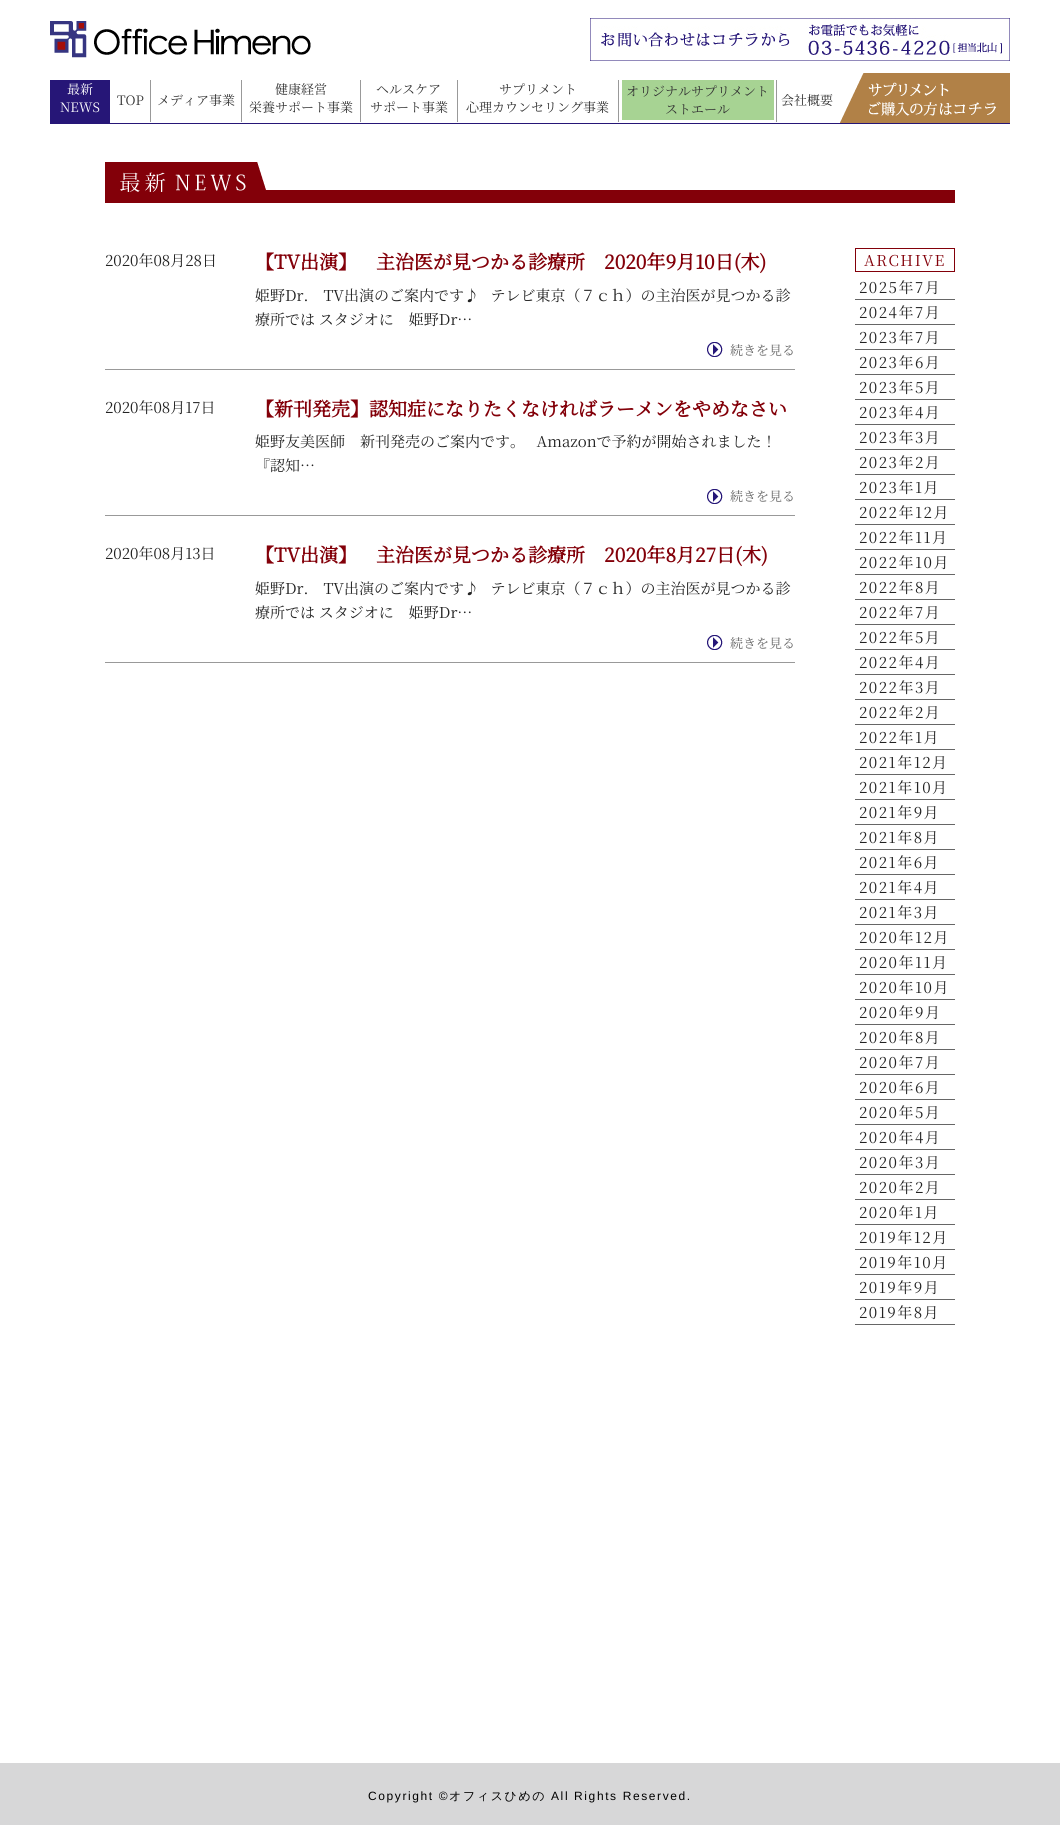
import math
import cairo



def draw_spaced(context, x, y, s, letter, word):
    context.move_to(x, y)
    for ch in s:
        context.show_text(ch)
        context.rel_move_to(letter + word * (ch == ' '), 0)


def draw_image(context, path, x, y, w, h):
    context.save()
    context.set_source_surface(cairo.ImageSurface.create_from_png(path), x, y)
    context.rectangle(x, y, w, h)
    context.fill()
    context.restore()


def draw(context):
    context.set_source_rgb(1, 1, 1)
    context.paint()
    context.set_source_rgb(38 / 255, 22 / 255, 119 / 255)
    context.rectangle(50, 123, 960, 1)
    context.fill()
    draw_image(context, "images/1.png", 50, 21, 261, 37)
    draw_image(context, "images/2.png", 590, 18, 420, 43)
    context.rectangle(50, 80, 60, 43)
    context.fill()
    context.set_source_rgb(153 / 255, 153 / 255, 153 / 255)
    context.rectangle(150, 80, 1, 42)
    context.fill()
    context.rectangle(241, 80, 1, 42)
    context.fill()
    context.rectangle(360, 80, 1, 42)
    context.fill()
    context.rectangle(457, 80, 1, 42)
    context.fill()
    context.rectangle(618, 80, 1, 42)
    context.fill()
    context.rectangle(776, 80, 1, 42)
    context.fill()
    context.set_source_rgb(167 / 255, 211 / 255, 147 / 255)
    context.rectangle(622, 80, 152, 40)
    context.fill()
    draw_image(context, "images/3.png", 840, 73, 170, 50)
    draw_image(context, "images/4.png", 105, 162, 850, 41)
    context.set_source_rgb(153 / 255, 153 / 255, 153 / 255)
    context.rectangle(105, 369, 690, 1)
    context.fill()
    draw_image(context, "images/5.png", 707, 342, 16, 15)
    context.rectangle(105, 515, 690, 1)
    context.fill()
    draw_image(context, "images/5.png", 707, 489, 16, 15)
    context.rectangle(105, 662, 690, 1)
    context.fill()
    draw_image(context, "images/5.png", 707, 635, 16, 15)
    context.rectangle(855.5, 248.5, 99, 23)
    context.set_source_rgb(131 / 255, 0, 9 / 255)
    context.set_line_width(1)
    context.stroke()
    context.set_source_rgb(102 / 255, 102 / 255, 102 / 255)
    context.rectangle(855, 299, 100, 1)
    context.fill()
    context.rectangle(855, 324, 100, 1)
    context.fill()
    context.rectangle(855, 349, 100, 1)
    context.fill()
    context.rectangle(855, 374, 100, 1)
    context.fill()
    context.rectangle(855, 399, 100, 1)
    context.fill()
    context.rectangle(855, 424, 100, 1)
    context.fill()
    context.rectangle(855, 449, 100, 1)
    context.fill()
    context.rectangle(855, 474, 100, 1)
    context.fill()
    context.rectangle(855, 499, 100, 1)
    context.fill()
    context.rectangle(855, 524, 100, 1)
    context.fill()
    context.rectangle(855, 549, 100, 1)
    context.fill()
    context.rectangle(855, 574, 100, 1)
    context.fill()
    context.rectangle(855, 599, 100, 1)
    context.fill()
    context.rectangle(855, 624, 100, 1)
    context.fill()
    context.rectangle(855, 649, 100, 1)
    context.fill()
    context.rectangle(855, 674, 100, 1)
    context.fill()
    context.rectangle(855, 699, 100, 1)
    context.fill()
    context.rectangle(855, 724, 100, 1)
    context.fill()
    context.rectangle(855, 749, 100, 1)
    context.fill()
    context.rectangle(855, 774, 100, 1)
    context.fill()
    context.rectangle(855, 799, 100, 1)
    context.fill()
    context.rectangle(855, 824, 100, 1)
    context.fill()
    context.rectangle(855, 849, 100, 1)
    context.fill()
    context.rectangle(855, 874, 100, 1)
    context.fill()
    context.rectangle(855, 899, 100, 1)
    context.fill()
    context.rectangle(855, 924, 100, 1)
    context.fill()
    context.rectangle(855, 949, 100, 1)
    context.fill()
    context.rectangle(855, 974, 100, 1)
    context.fill()
    context.rectangle(855, 999, 100, 1)
    context.fill()
    context.rectangle(855, 1024, 100, 1)
    context.fill()
    context.rectangle(855, 1049, 100, 1)
    context.fill()
    context.rectangle(855, 1074, 100, 1)
    context.fill()
    context.rectangle(855, 1099, 100, 1)
    context.fill()
    context.rectangle(855, 1124, 100, 1)
    context.fill()
    context.rectangle(855, 1149, 100, 1)
    context.fill()
    context.rectangle(855, 1174, 100, 1)
    context.fill()
    context.rectangle(855, 1199, 100, 1)
    context.fill()
    context.rectangle(855, 1224, 100, 1)
    context.fill()
    context.rectangle(855, 1249, 100, 1)
    context.fill()
    context.rectangle(855, 1274, 100, 1)
    context.fill()
    context.rectangle(855, 1299, 100, 1)
    context.fill()
    context.rectangle(855, 1324, 100, 1)
    context.fill()
    context.set_source_rgb(215 / 255, 215 / 255, 216 / 255)
    context.rectangle(0, 1763, 1060, 62)
    context.fill()
    context.select_font_face("Noto Serif JP ExtraLight")
    context.set_font_size(13)
    context.set_source_rgb(1, 1, 1)
    context.move_to(67, 94)
    context.show_text("最新")
    context.move_to(60, 112)
    context.show_text("NEWS")
    context.set_source_rgb(51 / 255, 51 / 255, 51 / 255)
    context.move_to(117, 105)
    context.show_text("TOP")
    context.move_to(157, 105)
    context.show_text("メディア事業")
    context.move_to(275, 94)
    context.show_text("健康経営")
    context.move_to(249, 112)
    context.show_text("栄養サポート事業")
    context.move_to(376, 94)
    context.show_text("ヘルスケア")
    context.move_to(370, 112)
    context.show_text("サポート事業")
    context.move_to(499, 94)
    context.show_text("サプリメント")
    context.move_to(466, 112)
    context.show_text("心理カウンセリング事業")
    context.move_to(626, 96)
    context.show_text("オリジナルサプリメント")
    context.move_to(665, 114)
    context.show_text("ストエール")
    context.move_to(781, 105)
    context.show_text("会社概要")
    context.set_font_size(15)
    context.set_source_rgb(34 / 255, 34 / 255, 34 / 255)
    context.move_to(105, 266)
    context.show_text("2020年08月28日")
    context.select_font_face("Noto Serif JP", cairo.FontSlant.NORMAL, cairo.FontWeight.BOLD)
    context.set_font_size(19)
    context.set_source_rgb(131 / 255, 0, 9 / 255)
    context.move_to(255, 269)
    context.show_text("【TV出演】　主治医が見つかる診療所　2020年9月10日(木)")
    context.select_font_face("Noto Serif JP ExtraLight")
    context.set_font_size(15)
    context.set_source_rgb(34 / 255, 34 / 255, 34 / 255)
    context.move_to(255, 301)
    context.show_text("姫野Dr.　TV出演のご案内です♪   テレビ東京（７ｃｈ）の主治医が見つかる診")
    context.move_to(255, 325)
    context.show_text("療所では スタジオに　姫野Dr…")
    context.set_font_size(13)
    context.set_source_rgb(102 / 255, 102 / 255, 102 / 255)
    context.move_to(730, 355)
    context.show_text("続きを見る")
    context.set_font_size(15)
    context.set_source_rgb(34 / 255, 34 / 255, 34 / 255)
    context.move_to(105, 413)
    context.show_text("2020年08月17日")
    context.select_font_face("Noto Serif JP", cairo.FontSlant.NORMAL, cairo.FontWeight.BOLD)
    context.set_font_size(19)
    context.set_source_rgb(131 / 255, 0, 9 / 255)
    context.move_to(255, 416)
    context.show_text("【新刊発売】認知症になりたくなければラーメンをやめなさい")
    context.select_font_face("Noto Serif JP ExtraLight")
    context.set_font_size(15)
    context.set_source_rgb(34 / 255, 34 / 255, 34 / 255)
    context.move_to(255, 447)
    context.show_text("姫野友美医師　新刊発売のご案内です。   Amazonで予約が開始されました！")
    context.move_to(255, 471)
    context.show_text("『認知…")
    context.set_font_size(13)
    context.set_source_rgb(102 / 255, 102 / 255, 102 / 255)
    context.move_to(730, 501)
    context.show_text("続きを見る")
    context.set_font_size(15)
    context.set_source_rgb(34 / 255, 34 / 255, 34 / 255)
    context.move_to(105, 559)
    context.show_text("2020年08月13日")
    context.select_font_face("Noto Serif JP", cairo.FontSlant.NORMAL, cairo.FontWeight.BOLD)
    context.set_font_size(19)
    context.set_source_rgb(131 / 255, 0, 9 / 255)
    context.move_to(255, 562)
    context.show_text("【TV出演】　主治医が見つかる診療所　2020年8月27日(木)")
    context.select_font_face("Noto Serif JP ExtraLight")
    context.set_font_size(15)
    context.set_source_rgb(34 / 255, 34 / 255, 34 / 255)
    context.move_to(255, 594)
    context.show_text("姫野Dr.　TV出演のご案内です♪   テレビ東京（７ｃｈ）の主治医が見つかる診")
    context.move_to(255, 618)
    context.show_text("療所では スタジオに　姫野Dr…")
    context.set_font_size(13)
    context.set_source_rgb(102 / 255, 102 / 255, 102 / 255)
    context.move_to(730, 648)
    context.show_text("続きを見る")
    context.set_font_size(15)
    context.set_source_rgb(131 / 255, 0, 9 / 255)
    draw_spaced(context, 864, 266, "ARCHIVE", 1.5, 0)
    context.set_source_rgb(34 / 255, 34 / 255, 34 / 255)
    draw_spaced(context, 859, 293, "2025年7月", 1.5, 0)
    draw_spaced(context, 859, 318, "2024年7月", 1.5, 0)
    draw_spaced(context, 859, 343, "2023年7月", 1.5, 0)
    draw_spaced(context, 859, 368, "2023年6月", 1.5, 0)
    draw_spaced(context, 859, 393, "2023年5月", 1.5, 0)
    draw_spaced(context, 859, 418, "2023年4月", 1.5, 0)
    draw_spaced(context, 859, 443, "2023年3月", 1.5, 0)
    draw_spaced(context, 859, 468, "2023年2月", 1.5, 0)
    draw_spaced(context, 859, 493, "2023年1月", 1.5, 0)
    draw_spaced(context, 859, 518, "2022年12月", 1.5, 0)
    draw_spaced(context, 859, 543, "2022年11月", 1.5, 0)
    draw_spaced(context, 859, 568, "2022年10月", 1.5, 0)
    draw_spaced(context, 859, 593, "2022年8月", 1.5, 0)
    draw_spaced(context, 859, 618, "2022年7月", 1.5, 0)
    draw_spaced(context, 859, 643, "2022年5月", 1.5, 0)
    draw_spaced(context, 859, 668, "2022年4月", 1.5, 0)
    draw_spaced(context, 859, 693, "2022年3月", 1.5, 0)
    draw_spaced(context, 859, 718, "2022年2月", 1.5, 0)
    draw_spaced(context, 859, 743, "2022年1月", 1.5, 0)
    draw_spaced(context, 859, 768, "2021年12月", 1.5, 0)
    draw_spaced(context, 859, 793, "2021年10月", 1.5, 0)
    draw_spaced(context, 859, 818, "2021年9月", 1.5, 0)
    draw_spaced(context, 859, 843, "2021年8月", 1.5, 0)
    draw_spaced(context, 859, 868, "2021年6月", 1.5, 0)
    draw_spaced(context, 859, 893, "2021年4月", 1.5, 0)
    draw_spaced(context, 859, 918, "2021年3月", 1.5, 0)
    draw_spaced(context, 859, 943, "2020年12月", 1.5, 0)
    draw_spaced(context, 859, 968, "2020年11月", 1.5, 0)
    draw_spaced(context, 859, 993, "2020年10月", 1.5, 0)
    draw_spaced(context, 859, 1018, "2020年9月", 1.5, 0)
    draw_spaced(context, 859, 1043, "2020年8月", 1.5, 0)
    draw_spaced(context, 859, 1068, "2020年7月", 1.5, 0)
    draw_spaced(context, 859, 1093, "2020年6月", 1.5, 0)
    draw_spaced(context, 859, 1118, "2020年5月", 1.5, 0)
    draw_spaced(context, 859, 1143, "2020年4月", 1.5, 0)
    draw_spaced(context, 859, 1168, "2020年3月", 1.5, 0)
    draw_spaced(context, 859, 1193, "2020年2月", 1.5, 0)
    draw_spaced(context, 859, 1218, "2020年1月", 1.5, 0)
    draw_spaced(context, 859, 1243, "2019年12月", 1.5, 0)
    draw_spaced(context, 859, 1268, "2019年10月", 1.5, 0)
    draw_spaced(context, 859, 1293, "2019年9月", 1.5, 0)
    draw_spaced(context, 859, 1318, "2019年8月", 1.5, 0)
    context.select_font_face("Liberation Sans")
    context.set_font_size(12)
    context.set_source_rgb(0, 0, 0)
    draw_spaced(context, 368, 1800, "Copyright ©", 1.6, 0)
    context.select_font_face("WenQuanYi Zen Hei Medium")
    draw_spaced(context, 449, 1800, "オフィスひめの", 1.6, 0)
    context.select_font_face("Liberation Sans")
    draw_spaced(context, 551, 1800, "All Rights Reserved.", 1.6, 0)


surface = cairo.ImageSurface(cairo.Format.RGB24, 1060, 1825)
context = cairo.Context(surface)
options = cairo.FontOptions()
options.set_hint_metrics(cairo.HintMetrics.OFF)
options.set_hint_style(cairo.HintStyle.NONE)
context.set_font_options(options)
context.set_miter_limit(4)
draw(context)
surface.write_to_png("out.png")
